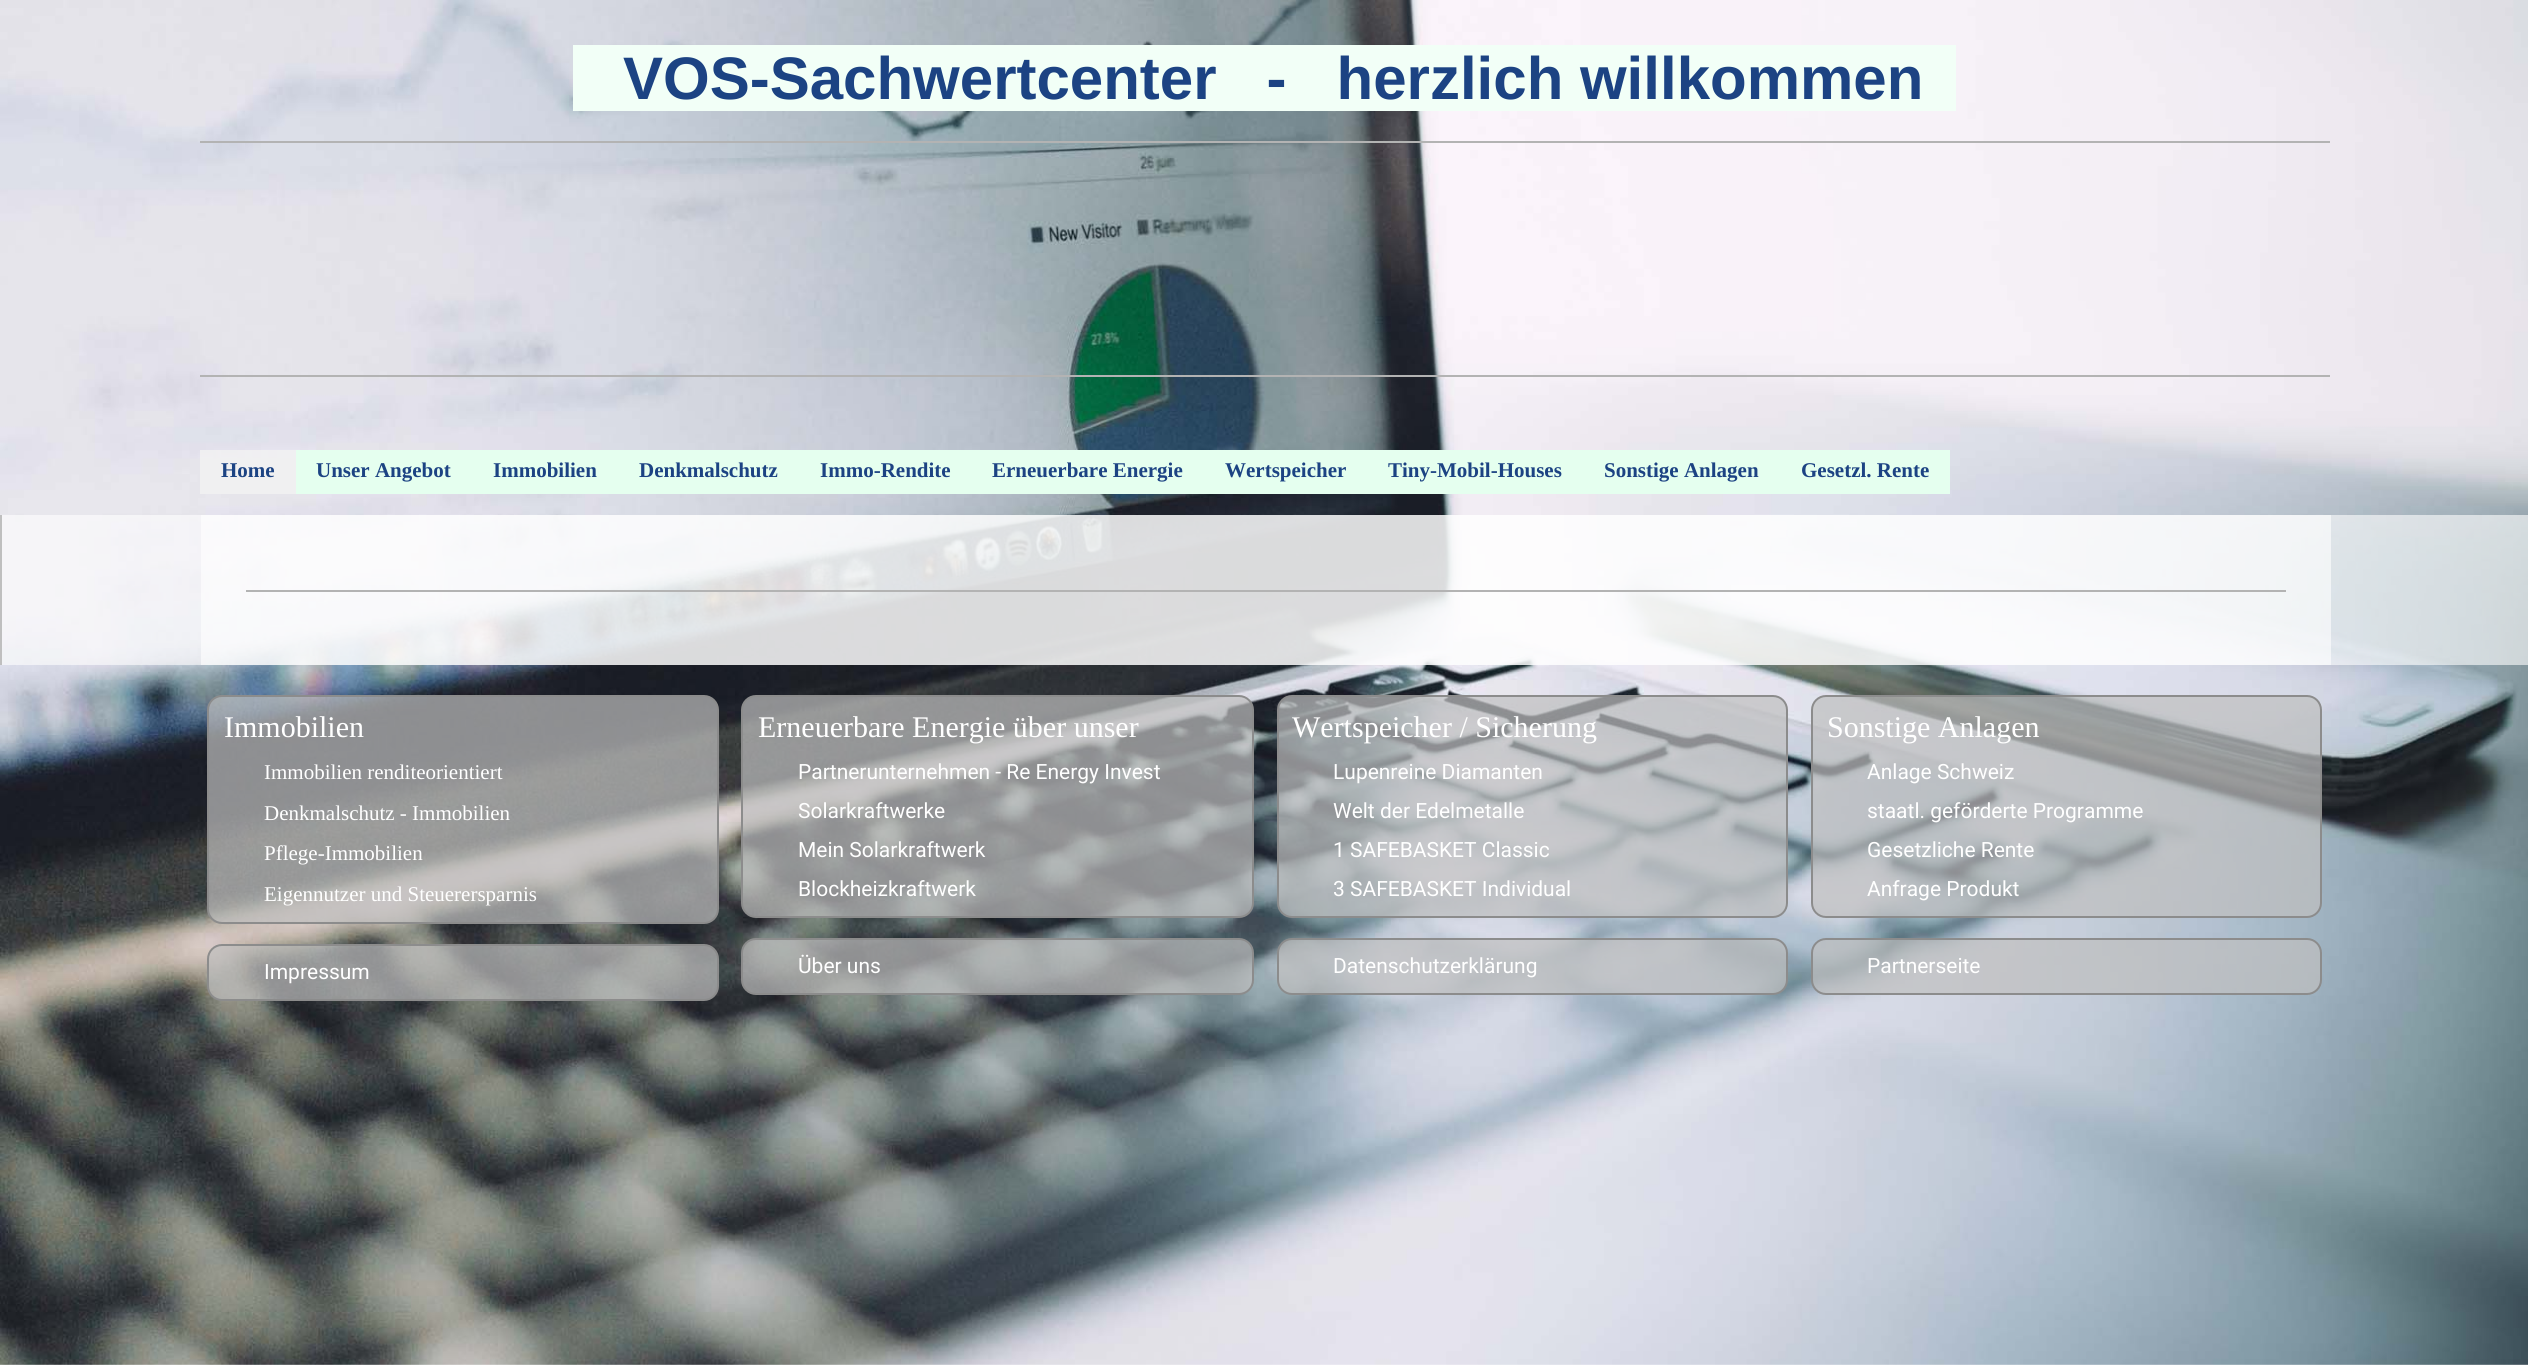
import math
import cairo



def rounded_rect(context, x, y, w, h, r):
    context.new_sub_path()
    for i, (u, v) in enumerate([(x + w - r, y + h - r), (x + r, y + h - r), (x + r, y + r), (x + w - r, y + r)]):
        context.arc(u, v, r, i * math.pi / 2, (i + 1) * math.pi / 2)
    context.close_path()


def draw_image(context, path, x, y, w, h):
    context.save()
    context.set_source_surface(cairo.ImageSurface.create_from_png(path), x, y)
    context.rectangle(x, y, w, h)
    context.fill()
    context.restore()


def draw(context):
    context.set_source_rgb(1, 1, 1)
    context.paint()
    draw_image(context, "images/1.png", 0, 0, 2528, 1365)
    context.set_source_rgb(179 / 255, 179 / 255, 179 / 255)
    context.rectangle(200, 141, 2130, 2)
    context.fill()
    context.set_source_rgb(242 / 255, 1, 247 / 255)
    context.rectangle(573, 45, 1383, 66)
    context.fill()
    context.set_source_rgb(179 / 255, 179 / 255, 179 / 255)
    context.rectangle(200, 375, 2130, 2)
    context.fill()
    context.set_source_rgba(242 / 255, 242 / 255, 242 / 255, 0.8)
    context.rectangle(200, 450, 96, 44)
    context.fill()
    context.set_source_rgb(229 / 255, 1, 239 / 255)
    context.rectangle(296, 450, 1654, 44)
    context.fill()
    context.set_source_rgba(1, 1, 1, 0.6)
    context.rectangle(2, 515, 2526, 150)
    context.fill()
    context.set_source_rgb(191 / 255, 191 / 255, 191 / 255)
    context.rectangle(0, 515, 2, 150)
    context.fill()
    context.set_source_rgba(1, 1, 1, 0.6)
    context.rectangle(201, 515, 2130, 150)
    context.fill()
    context.set_source_rgb(179 / 255, 179 / 255, 179 / 255)
    context.rectangle(246, 590, 2040, 2)
    context.fill()
    context.set_source_rgba(191 / 255, 191 / 255, 191 / 255, 0.7)
    rounded_rect(context, 208, 696, 510, 227, 14)
    context.fill_preserve()
    context.set_source_rgb(140 / 255, 140 / 255, 140 / 255)
    context.stroke()
    context.set_source_rgba(191 / 255, 191 / 255, 191 / 255, 0.7)
    rounded_rect(context, 208, 945, 510, 55, 14)
    context.fill_preserve()
    context.set_source_rgb(140 / 255, 140 / 255, 140 / 255)
    context.stroke()
    context.set_source_rgba(191 / 255, 191 / 255, 191 / 255, 0.7)
    rounded_rect(context, 742, 696, 511, 221, 14)
    context.fill_preserve()
    context.set_source_rgb(140 / 255, 140 / 255, 140 / 255)
    context.stroke()
    context.set_source_rgba(191 / 255, 191 / 255, 191 / 255, 0.7)
    rounded_rect(context, 742, 939, 511, 55, 14)
    context.fill_preserve()
    context.set_source_rgb(140 / 255, 140 / 255, 140 / 255)
    context.stroke()
    context.set_source_rgba(191 / 255, 191 / 255, 191 / 255, 0.7)
    rounded_rect(context, 1278, 696, 509, 221, 14)
    context.fill_preserve()
    context.set_source_rgb(140 / 255, 140 / 255, 140 / 255)
    context.stroke()
    context.set_source_rgba(191 / 255, 191 / 255, 191 / 255, 0.7)
    rounded_rect(context, 1278, 939, 509, 55, 14)
    context.fill_preserve()
    context.set_source_rgb(140 / 255, 140 / 255, 140 / 255)
    context.stroke()
    context.set_source_rgba(191 / 255, 191 / 255, 191 / 255, 0.7)
    rounded_rect(context, 1812, 696, 509, 221, 14)
    context.fill_preserve()
    context.set_source_rgb(140 / 255, 140 / 255, 140 / 255)
    context.stroke()
    context.set_source_rgba(191 / 255, 191 / 255, 191 / 255, 0.7)
    rounded_rect(context, 1812, 939, 509, 55, 14)
    context.fill_preserve()
    context.set_source_rgb(140 / 255, 140 / 255, 140 / 255)
    context.stroke()
    context.select_font_face("Arimo", cairo.FontSlant.NORMAL, cairo.FontWeight.BOLD)
    context.set_font_size(60)
    context.set_source_rgb(28 / 255, 67 / 255, 131 / 255)
    context.move_to(623, 99)
    context.show_text("VOS-Sachwertcenter   -   herzlich willkommen")
    context.select_font_face("Liberation Serif", cairo.FontSlant.NORMAL, cairo.FontWeight.BOLD)
    context.set_font_size(21)
    context.move_to(221, 477)
    context.show_text("Home")
    context.move_to(316, 477)
    context.show_text("Unser Angebot")
    context.move_to(493, 477)
    context.show_text("Immobilien")
    context.move_to(639, 477)
    context.show_text("Denkmalschutz")
    context.move_to(820, 477)
    context.show_text("Immo-Rendite")
    context.move_to(992, 477)
    context.show_text("Erneuerbare Energie")
    context.move_to(1225, 477)
    context.show_text("Wertspeicher")
    context.move_to(1388, 477)
    context.show_text("Tiny-Mobil-Houses")
    context.move_to(1604, 477)
    context.show_text("Sonstige Anlagen")
    context.move_to(1801, 477)
    context.show_text("Gesetzl. Rente")
    context.select_font_face("Liberation Serif")
    context.set_font_size(30)
    context.set_source_rgb(1, 1, 1)
    context.move_to(224, 737)
    context.show_text("Immobilien")
    context.set_font_size(21)
    context.move_to(264, 779)
    context.show_text("Immobilien renditeorientiert")
    context.move_to(264, 820)
    context.show_text("Denkmalschutz - Immobilien")
    context.move_to(264, 860)
    context.show_text("Pflege-Immobilien")
    context.move_to(264, 901)
    context.show_text("Eigennutzer und Steuerersparnis")
    context.select_font_face("Roboto")
    context.move_to(264, 979)
    context.show_text("Impressum")
    context.select_font_face("Liberation Serif")
    context.set_font_size(30)
    context.move_to(758, 737)
    context.show_text("Erneuerbare Energie über unser")
    context.select_font_face("Roboto")
    context.set_font_size(21)
    context.move_to(798, 779)
    context.show_text("Partnerunternehmen - Re Energy Invest")
    context.move_to(798, 818)
    context.show_text("Solarkraftwerke")
    context.move_to(798, 857)
    context.show_text("Mein Solarkraftwerk")
    context.move_to(798, 896)
    context.show_text("Blockheizkraftwerk")
    context.move_to(798, 973)
    context.show_text("Über uns")
    context.select_font_face("Liberation Serif")
    context.set_font_size(30)
    context.move_to(1292, 737)
    context.show_text("Wertspeicher / Sicherung")
    context.select_font_face("Roboto")
    context.set_font_size(21)
    context.move_to(1333, 779)
    context.show_text("Lupenreine Diamanten")
    context.move_to(1333, 818)
    context.show_text("Welt der Edelmetalle")
    context.move_to(1333, 857)
    context.show_text("1 SAFEBASKET Classic")
    context.move_to(1333, 896)
    context.show_text("3 SAFEBASKET Individual")
    context.move_to(1333, 973)
    context.show_text("Datenschutzerklärung")
    context.select_font_face("Liberation Serif")
    context.set_font_size(30)
    context.move_to(1827, 737)
    context.show_text("Sonstige Anlagen")
    context.select_font_face("Roboto")
    context.set_font_size(21)
    context.move_to(1867, 779)
    context.show_text("Anlage Schweiz")
    context.move_to(1867, 818)
    context.show_text("staatl. geförderte Programme")
    context.move_to(1867, 857)
    context.show_text("Gesetzliche Rente")
    context.move_to(1867, 896)
    context.show_text("Anfrage Produkt")
    context.move_to(1867, 973)
    context.show_text("Partnerseite")


surface = cairo.ImageSurface(cairo.Format.RGB24, 2528, 1365)
context = cairo.Context(surface)
options = cairo.FontOptions()
options.set_hint_metrics(cairo.HintMetrics.OFF)
options.set_hint_style(cairo.HintStyle.NONE)
context.set_font_options(options)
context.set_miter_limit(4)
draw(context)
surface.write_to_png("out.png")
